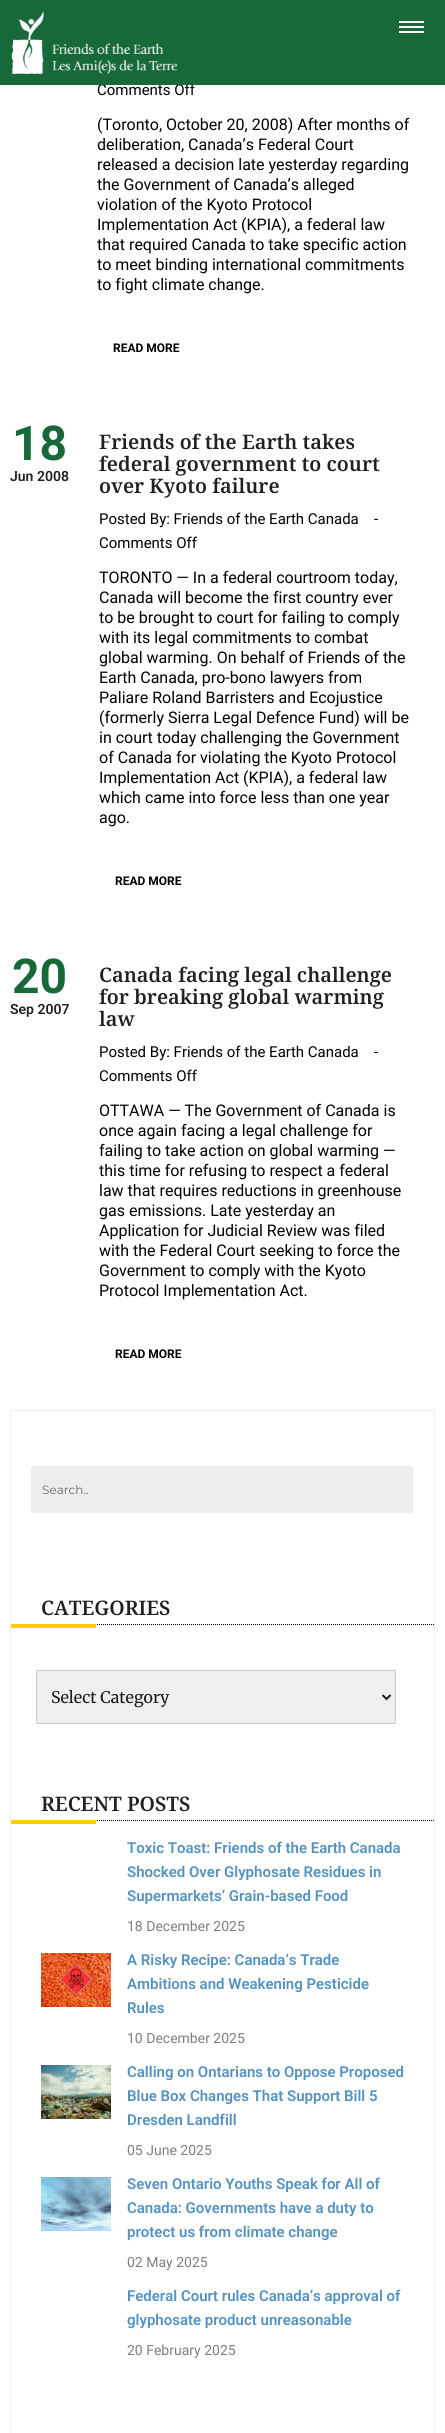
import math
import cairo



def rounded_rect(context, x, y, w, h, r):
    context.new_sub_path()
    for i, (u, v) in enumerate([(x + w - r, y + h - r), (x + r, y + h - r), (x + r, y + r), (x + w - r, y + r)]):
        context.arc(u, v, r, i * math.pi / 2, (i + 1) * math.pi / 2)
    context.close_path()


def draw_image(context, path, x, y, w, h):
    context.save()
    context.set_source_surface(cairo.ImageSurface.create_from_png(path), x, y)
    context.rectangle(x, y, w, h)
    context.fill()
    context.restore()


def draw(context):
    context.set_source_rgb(1, 1, 1)
    context.paint()
    context.rectangle(10.5, 1410.5, 424, 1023)
    context.set_source_rgb(240 / 255, 240 / 255, 240 / 255)
    context.set_line_width(1)
    context.stroke()
    context.set_source_rgb(237 / 255, 237 / 255, 237 / 255)
    rounded_rect(context, 31.5, 1466.5, 381, 46, 1.5)
    context.fill_preserve()
    context.stroke()
    context.new_path()
    context.move_to(11, 1624.5)
    context.line_to(434, 1624.5)
    context.set_source_rgb(0, 0, 0)
    context.set_dash([1, 1])
    context.stroke()
    context.set_source_rgb(1, 202 / 255, 0)
    context.rectangle(11, 1624, 85, 4)
    context.fill()
    context.set_source_rgb(239 / 255, 239 / 255, 239 / 255)
    context.rectangle(36.5, 1670.5, 359, 53)
    context.fill_preserve()
    context.set_source_rgb(204 / 255, 204 / 255, 204 / 255)
    context.set_dash([])
    context.stroke()
    context.new_path()
    context.move_to(382.5, 1695)
    context.line_to(386.5, 1699)
    context.line_to(390.5, 1695)
    context.set_source_rgb(26 / 255, 26 / 255, 26 / 255)
    context.set_line_width(2)
    context.stroke()
    context.new_path()
    context.move_to(11, 1820.5)
    context.line_to(434, 1820.5)
    context.set_source_rgb(0, 0, 0)
    context.set_line_width(1)
    context.set_dash([1, 1])
    context.stroke()
    context.set_source_rgb(1, 202 / 255, 0)
    context.rectangle(11, 1820, 85, 4)
    context.fill()
    draw_image(context, "images/2.png", 41, 1953, 70, 54)
    draw_image(context, "images/3.png", 41, 2065, 70, 54)
    draw_image(context, "images/4.png", 41, 2177, 70, 54)
    context.select_font_face("Roboto")
    context.set_font_size(15)
    context.set_source_rgb(0, 0, 0)
    context.move_to(97, 95)
    context.show_text("Comments Off")
    context.set_source_rgb(23 / 255, 105 / 255, 57 / 255)
    context.rectangle(0, 0, 445, 85)
    context.fill()
    context.set_source_rgb(1, 1, 1)
    context.rectangle(399, 31, 25, 2)
    context.fill()
    context.rectangle(399, 21, 25, 2)
    context.fill()
    context.rectangle(399, 26, 25, 2)
    context.fill()
    draw_image(context, "images/1.png", 11, 11, 167, 63)
    context.set_font_size(16)
    context.set_source_rgb(0, 0, 0)
    context.move_to(97, 130)
    context.show_text("(Toronto, October 20, 2008) After months of")
    context.move_to(97, 150)
    context.show_text("deliberation, Canada’s Federal Court")
    context.move_to(97, 170)
    context.show_text("released a decision late yesterday regarding")
    context.move_to(97, 190)
    context.show_text("the Government of Canada’s alleged")
    context.move_to(97, 210)
    context.show_text("violation of the Kyoto Protocol")
    context.move_to(97, 230)
    context.show_text("Implementation Act (KPIA), a federal law")
    context.move_to(97, 250)
    context.show_text("that required Canada to take specific action")
    context.move_to(97, 270)
    context.show_text("to meet binding international commitments")
    context.move_to(97, 290)
    context.show_text("to fight climate change.")
    context.select_font_face("Roboto", cairo.FontSlant.NORMAL, cairo.FontWeight.BOLD)
    context.set_font_size(12)
    context.move_to(113, 352)
    context.show_text("READ MORE")
    context.set_font_size(48)
    context.set_source_rgb(23 / 255, 105 / 255, 57 / 255)
    context.move_to(12, 460)
    context.show_text("18")
    context.select_font_face("Roboto SemiBold")
    context.set_font_size(14)
    context.set_source_rgb(33 / 255, 33 / 255, 33 / 255)
    context.move_to(10, 481)
    context.show_text("Jun 2008")
    context.select_font_face("Noto Serif SemiBold")
    context.set_font_size(20)
    context.move_to(99, 449)
    context.show_text("Friends of the Earth takes")
    context.move_to(99, 471)
    context.show_text("federal government to court")
    context.move_to(99, 493)
    context.show_text("over Kyoto failure")
    context.select_font_face("Roboto")
    context.set_font_size(15)
    context.set_source_rgb(0, 0, 0)
    context.move_to(99, 524)
    context.show_text("Posted By: Friends of the Earth Canada")
    context.move_to(374, 524)
    context.show_text("-")
    context.move_to(99, 548)
    context.show_text("Comments Off")
    context.set_font_size(16)
    context.move_to(99, 583)
    context.show_text("TORONTO — In a federal courtroom today,")
    context.move_to(99, 603)
    context.show_text("Canada will become the first country ever")
    context.move_to(99, 623)
    context.show_text("to be brought to court for failing to comply")
    context.move_to(99, 643)
    context.show_text("with its legal commitments to combat")
    context.move_to(99, 663)
    context.show_text("global warming. On behalf of Friends of the")
    context.move_to(99, 683)
    context.show_text("Earth Canada, pro-bono lawyers from")
    context.move_to(99, 703)
    context.show_text("Paliare Roland Barristers and Ecojustice")
    context.move_to(99, 723)
    context.show_text("(formerly Sierra Legal Defence Fund) will be")
    context.move_to(99, 743)
    context.show_text("in court today challenging the Government")
    context.move_to(99, 763)
    context.show_text("of Canada for violating the Kyoto Protocol")
    context.move_to(99, 783)
    context.show_text("Implementation Act (KPIA), a federal law")
    context.move_to(99, 803)
    context.show_text("which came into force less than one year")
    context.move_to(99, 823)
    context.show_text("ago.")
    context.select_font_face("Roboto", cairo.FontSlant.NORMAL, cairo.FontWeight.BOLD)
    context.set_font_size(12)
    context.move_to(115, 885)
    context.show_text("READ MORE")
    context.set_font_size(48)
    context.set_source_rgb(23 / 255, 105 / 255, 57 / 255)
    context.move_to(12, 993)
    context.show_text("20")
    context.select_font_face("Roboto SemiBold")
    context.set_font_size(14)
    context.set_source_rgb(33 / 255, 33 / 255, 33 / 255)
    context.move_to(10, 1014)
    context.show_text("Sep 2007")
    context.select_font_face("Noto Serif SemiBold")
    context.set_font_size(20)
    context.move_to(99, 982)
    context.show_text("Canada facing legal challenge")
    context.move_to(99, 1004)
    context.show_text("for breaking global warming")
    context.move_to(99, 1026)
    context.show_text("law")
    context.select_font_face("Roboto")
    context.set_font_size(15)
    context.set_source_rgb(0, 0, 0)
    context.move_to(99, 1057)
    context.show_text("Posted By: Friends of the Earth Canada")
    context.move_to(374, 1057)
    context.show_text("-")
    context.move_to(99, 1081)
    context.show_text("Comments Off")
    context.set_font_size(16)
    context.move_to(99, 1116)
    context.show_text("OTTAWA — The Government of Canada is")
    context.move_to(99, 1136)
    context.show_text("once again facing a legal challenge for")
    context.move_to(99, 1156)
    context.show_text("failing to take action on global warming —")
    context.move_to(99, 1176)
    context.show_text("this time for refusing to respect a federal")
    context.move_to(99, 1196)
    context.show_text("law that requires reductions in greenhouse")
    context.move_to(99, 1216)
    context.show_text("gas emissions. Late yesterday an")
    context.move_to(99, 1236)
    context.show_text("Application for Judicial Review was filed")
    context.move_to(99, 1256)
    context.show_text("with the Federal Court seeking to force the")
    context.move_to(99, 1276)
    context.show_text("Government to comply with the Kyoto")
    context.move_to(99, 1296)
    context.show_text("Protocol Implementation Act.")
    context.select_font_face("Roboto", cairo.FontSlant.NORMAL, cairo.FontWeight.BOLD)
    context.set_font_size(12)
    context.move_to(115, 1358)
    context.show_text("READ MORE")
    context.select_font_face("Montserrat")
    context.set_source_rgb(104 / 255, 104 / 255, 104 / 255)
    context.move_to(42, 1494)
    context.show_text("Search..")
    context.select_font_face("Noto Serif SemiBold")
    context.set_font_size(20)
    context.set_source_rgb(33 / 255, 33 / 255, 33 / 255)
    context.move_to(41, 1615)
    context.show_text("CATEGORIES")
    context.select_font_face("Merriweather")
    context.set_font_size(16)
    context.set_source_rgb(26 / 255, 26 / 255, 26 / 255)
    context.move_to(51, 1703)
    context.show_text("Select Category")
    context.select_font_face("Noto Serif SemiBold")
    context.set_font_size(20)
    context.set_source_rgb(33 / 255, 33 / 255, 33 / 255)
    context.move_to(41, 1811)
    context.show_text("RECENT POSTS")
    context.select_font_face("Roboto SemiBold")
    context.set_font_size(15)
    context.set_source_rgb(83 / 255, 146 / 255, 193 / 255)
    context.move_to(127, 1853)
    context.show_text("Toxic Toast: Friends of the Earth Canada")
    context.move_to(127, 1877)
    context.show_text("Shocked Over Glyphosate Residues in")
    context.move_to(127, 1901)
    context.show_text("Supermarkets’ Grain-based Food")
    context.select_font_face("Roboto")
    context.set_font_size(14)
    context.set_source_rgb(126 / 255, 126 / 255, 126 / 255)
    context.move_to(127, 1931)
    context.show_text("18 December 2025")
    context.select_font_face("Roboto SemiBold")
    context.set_font_size(15)
    context.set_source_rgb(83 / 255, 146 / 255, 193 / 255)
    context.move_to(127, 1965)
    context.show_text("A Risky Recipe: Canada’s Trade")
    context.move_to(127, 1989)
    context.show_text("Ambitions and Weakening Pesticide")
    context.move_to(127, 2013)
    context.show_text("Rules")
    context.select_font_face("Roboto")
    context.set_font_size(14)
    context.set_source_rgb(126 / 255, 126 / 255, 126 / 255)
    context.move_to(127, 2043)
    context.show_text("10 December 2025")
    context.select_font_face("Roboto SemiBold")
    context.set_font_size(15)
    context.set_source_rgb(83 / 255, 146 / 255, 193 / 255)
    context.move_to(127, 2077)
    context.show_text("Calling on Ontarians to Oppose Proposed")
    context.move_to(127, 2101)
    context.show_text("Blue Box Changes That Support Bill 5")
    context.move_to(127, 2125)
    context.show_text("Dresden Landfill")
    context.select_font_face("Roboto")
    context.set_font_size(14)
    context.set_source_rgb(126 / 255, 126 / 255, 126 / 255)
    context.move_to(127, 2155)
    context.show_text("05 June 2025")
    context.select_font_face("Roboto SemiBold")
    context.set_font_size(15)
    context.set_source_rgb(83 / 255, 146 / 255, 193 / 255)
    context.move_to(127, 2189)
    context.show_text("Seven Ontario Youths Speak for All of")
    context.move_to(127, 2213)
    context.show_text("Canada: Governments have a duty to")
    context.move_to(127, 2237)
    context.show_text("protect us from climate change")
    context.select_font_face("Roboto")
    context.set_font_size(14)
    context.set_source_rgb(126 / 255, 126 / 255, 126 / 255)
    context.move_to(127, 2267)
    context.show_text("02 May 2025")
    context.select_font_face("Roboto SemiBold")
    context.set_font_size(15)
    context.set_source_rgb(83 / 255, 146 / 255, 193 / 255)
    context.move_to(127, 2301)
    context.show_text("Federal Court rules Canada’s approval of")
    context.move_to(127, 2325)
    context.show_text("glyphosate product unreasonable")
    context.select_font_face("Roboto")
    context.set_font_size(14)
    context.set_source_rgb(126 / 255, 126 / 255, 126 / 255)
    context.move_to(127, 2355)
    context.show_text("20 February 2025")


surface = cairo.ImageSurface(cairo.Format.RGB24, 445, 2433)
context = cairo.Context(surface)
options = cairo.FontOptions()
options.set_hint_metrics(cairo.HintMetrics.OFF)
options.set_hint_style(cairo.HintStyle.NONE)
context.set_font_options(options)
context.set_miter_limit(4)
draw(context)
surface.write_to_png("out.png")
